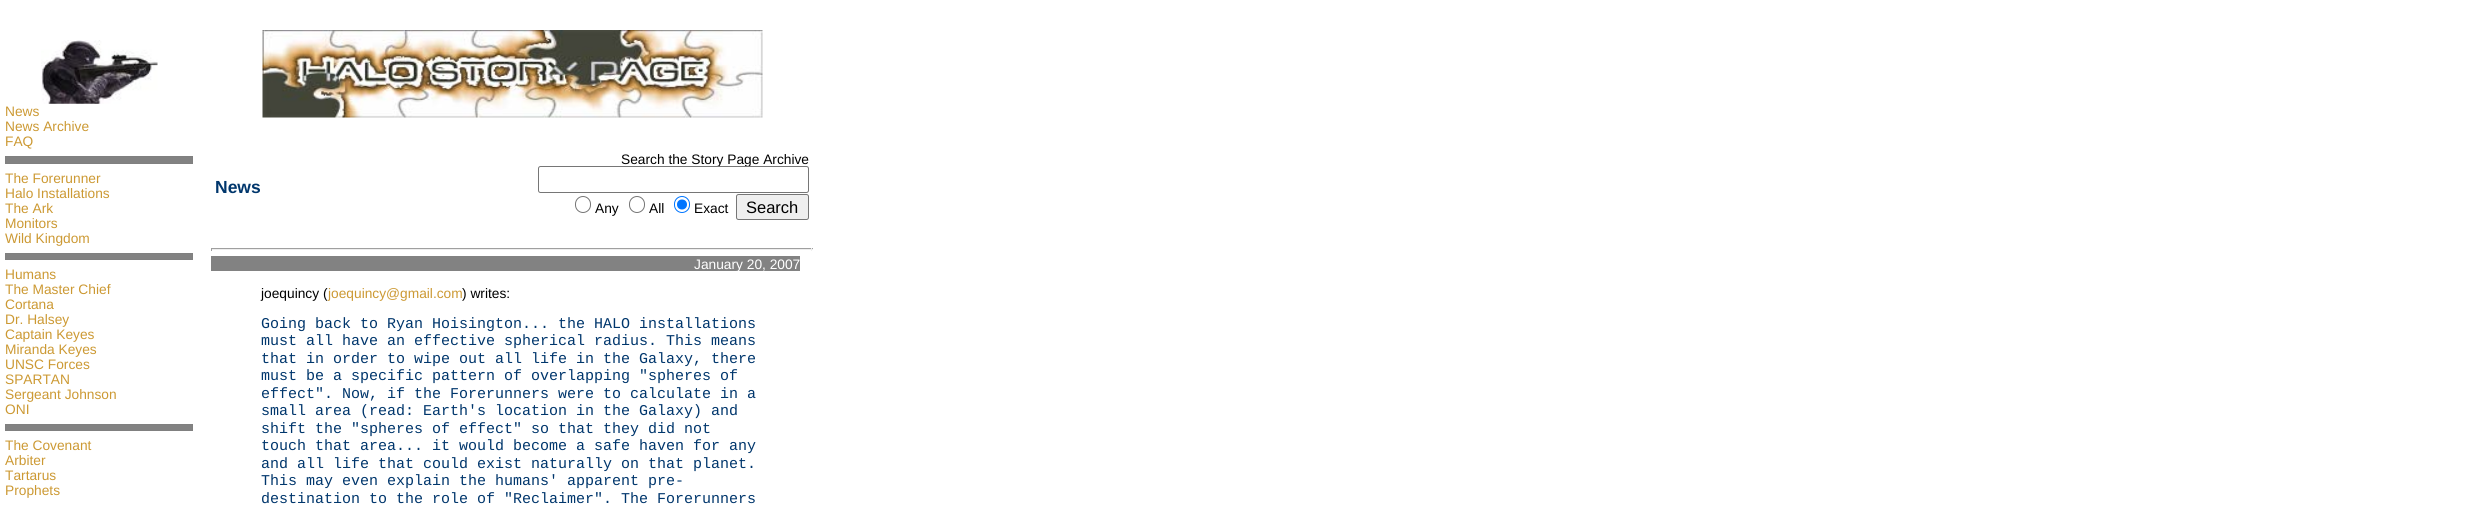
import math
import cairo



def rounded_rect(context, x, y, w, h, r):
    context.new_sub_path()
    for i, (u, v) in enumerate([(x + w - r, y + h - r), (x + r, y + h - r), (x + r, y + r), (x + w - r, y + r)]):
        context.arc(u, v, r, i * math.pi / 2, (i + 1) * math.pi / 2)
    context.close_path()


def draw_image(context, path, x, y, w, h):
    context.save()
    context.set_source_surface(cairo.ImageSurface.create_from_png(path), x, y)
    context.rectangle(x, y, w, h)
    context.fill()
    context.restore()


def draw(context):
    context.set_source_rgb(1, 1, 1)
    context.paint()
    draw_image(context, "images/1.png", 41, 40, 117, 64)
    context.set_source_rgb(130 / 255, 130 / 255, 130 / 255)
    context.rectangle(5.5, 156.5, 187, 7)
    context.fill_preserve()
    context.set_source_rgb(128 / 255, 128 / 255, 128 / 255)
    context.set_line_width(1)
    context.stroke()
    context.set_source_rgb(130 / 255, 130 / 255, 130 / 255)
    context.rectangle(5.5, 253.5, 187, 6)
    context.fill_preserve()
    context.set_source_rgb(128 / 255, 128 / 255, 128 / 255)
    context.stroke()
    context.set_source_rgb(130 / 255, 130 / 255, 130 / 255)
    context.rectangle(5.5, 424.5, 187, 6)
    context.fill_preserve()
    context.set_source_rgb(128 / 255, 128 / 255, 128 / 255)
    context.stroke()
    draw_image(context, "images/2.png", 262, 30, 501, 88)
    rounded_rect(context, 575.5, 196.5, 15, 16, 7.5)
    context.set_source_rgb(118 / 255, 118 / 255, 118 / 255)
    context.stroke()
    rounded_rect(context, 629.5, 196.5, 15, 16, 7.5)
    context.stroke()
    rounded_rect(context, 674.5, 196.5, 15, 16, 7.5)
    context.set_source_rgb(0, 117 / 255, 1)
    context.stroke()
    context.arc(682, 204.5, 5, 0, 2 * math.pi)
    context.fill()
    context.set_source_rgb(239 / 255, 239 / 255, 239 / 255)
    rounded_rect(context, 736.5, 194.5, 72, 25, 2)
    context.fill_preserve()
    context.set_source_rgb(118 / 255, 118 / 255, 118 / 255)
    context.stroke()
    context.set_source_rgb(159 / 255, 159 / 255, 159 / 255)
    context.rectangle(211, 248, 602, 1)
    context.fill()
    context.set_source_rgb(238 / 255, 238 / 255, 238 / 255)
    context.rectangle(811, 248, 1, 3)
    context.fill()
    context.rectangle(211, 249, 602, 1)
    context.fill()
    context.set_source_rgb(159 / 255, 159 / 255, 159 / 255)
    context.rectangle(211, 248, 1, 3)
    context.fill()
    context.set_source_rgb(130 / 255, 130 / 255, 130 / 255)
    context.rectangle(211, 256, 589, 15)
    context.fill()
    context.select_font_face("Liberation Sans")
    context.set_font_size(13.75)
    context.set_source_rgb(204 / 255, 153 / 255, 51 / 255)
    context.move_to(5, 116)
    context.show_text("News")
    context.move_to(5, 131)
    context.show_text("News Archive")
    context.move_to(5, 146)
    context.show_text("FAQ")
    context.move_to(5, 183)
    context.show_text("The Forerunner")
    context.move_to(5, 198)
    context.show_text("Halo Installations")
    context.move_to(5, 213)
    context.show_text("The Ark")
    context.move_to(5, 228)
    context.show_text("Monitors")
    context.move_to(5, 243)
    context.show_text("Wild Kingdom")
    context.move_to(5, 279)
    context.show_text("Humans")
    context.move_to(5, 294)
    context.show_text("The Master Chief")
    context.move_to(5, 309)
    context.show_text("Cortana")
    context.move_to(5, 324)
    context.show_text("Dr. Halsey")
    context.move_to(5, 339)
    context.show_text("Captain Keyes")
    context.move_to(5, 354)
    context.show_text("Miranda Keyes")
    context.move_to(5, 369)
    context.show_text("UNSC Forces")
    context.move_to(5, 384)
    context.show_text("SPARTAN")
    context.move_to(5, 399)
    context.show_text("Sergeant Johnson")
    context.move_to(5, 414)
    context.show_text("ONI")
    context.move_to(5, 450)
    context.show_text("The Covenant")
    context.move_to(5, 465)
    context.show_text("Arbiter")
    context.move_to(5, 480)
    context.show_text("Tartarus")
    context.move_to(5, 495)
    context.show_text("Prophets")
    context.select_font_face("Liberation Sans", cairo.FontSlant.NORMAL, cairo.FontWeight.BOLD)
    context.set_font_size(17.5)
    context.set_source_rgb(0, 54 / 255, 108 / 255)
    context.move_to(215, 193)
    context.show_text("News")
    context.select_font_face("Liberation Sans")
    context.set_font_size(13.75)
    context.set_source_rgb(0, 0, 0)
    context.move_to(621, 164)
    context.show_text("Search the Story Page Archive")
    context.set_source_rgb(1, 1, 1)
    rounded_rect(context, 538.5, 166.5, 270, 26, 2)
    context.fill_preserve()
    context.set_source_rgb(118 / 255, 118 / 255, 118 / 255)
    context.stroke()
    context.set_source_rgb(0, 0, 0)
    context.move_to(595, 213)
    context.show_text("Any")
    context.move_to(649, 213)
    context.show_text("All")
    context.move_to(694, 213)
    context.show_text("Exact")
    context.set_font_size(16.5)
    context.move_to(746, 213)
    context.show_text("Search")
    context.set_font_size(13.75)
    context.set_source_rgb(1, 1, 1)
    context.move_to(694, 269)
    context.show_text("January 20, 2007")
    context.set_source_rgb(0, 0, 0)
    context.move_to(261, 298)
    context.show_text("joequincy (")
    context.set_source_rgb(204 / 255, 153 / 255, 51 / 255)
    context.move_to(328, 298)
    context.show_text("joequincy@gmail.com")
    context.set_source_rgb(0, 0, 0)
    context.move_to(462, 298)
    context.show_text(") writes:")
    context.select_font_face("Liberation Mono")
    context.set_font_size(15)
    context.set_source_rgb(0, 54 / 255, 108 / 255)
    context.move_to(261, 328)
    context.show_text("Going back to Ryan Hoisington... the HALO installations")
    context.move_to(261, 345)
    context.show_text("must all have an effective spherical radius. This means")
    context.move_to(261, 363)
    context.show_text("that in order to wipe out all life in the Galaxy, there")
    context.move_to(261, 380)
    context.show_text("must be a specific pattern of overlapping \"spheres of")
    context.move_to(261, 398)
    context.show_text("effect\". Now, if the Forerunners were to calculate in a")
    context.move_to(261, 415)
    context.show_text("small area (read: Earth's location in the Galaxy) and")
    context.move_to(261, 433)
    context.show_text("shift the \"spheres of effect\" so that they did not")
    context.move_to(261, 450)
    context.show_text("touch that area... it would become a safe haven for any")
    context.move_to(261, 468)
    context.show_text("and all life that could exist naturally on that planet.")
    context.move_to(261, 485)
    context.show_text("This may even explain the humans' apparent pre-")
    context.move_to(261, 503)
    context.show_text("destination to the role of \"Reclaimer\". The Forerunners")


surface = cairo.ImageSurface(cairo.Format.RGB24, 2481, 506)
context = cairo.Context(surface)
options = cairo.FontOptions()
options.set_hint_metrics(cairo.HintMetrics.OFF)
options.set_hint_style(cairo.HintStyle.NONE)
context.set_font_options(options)
context.set_miter_limit(4)
draw(context)
surface.write_to_png("out.png")
